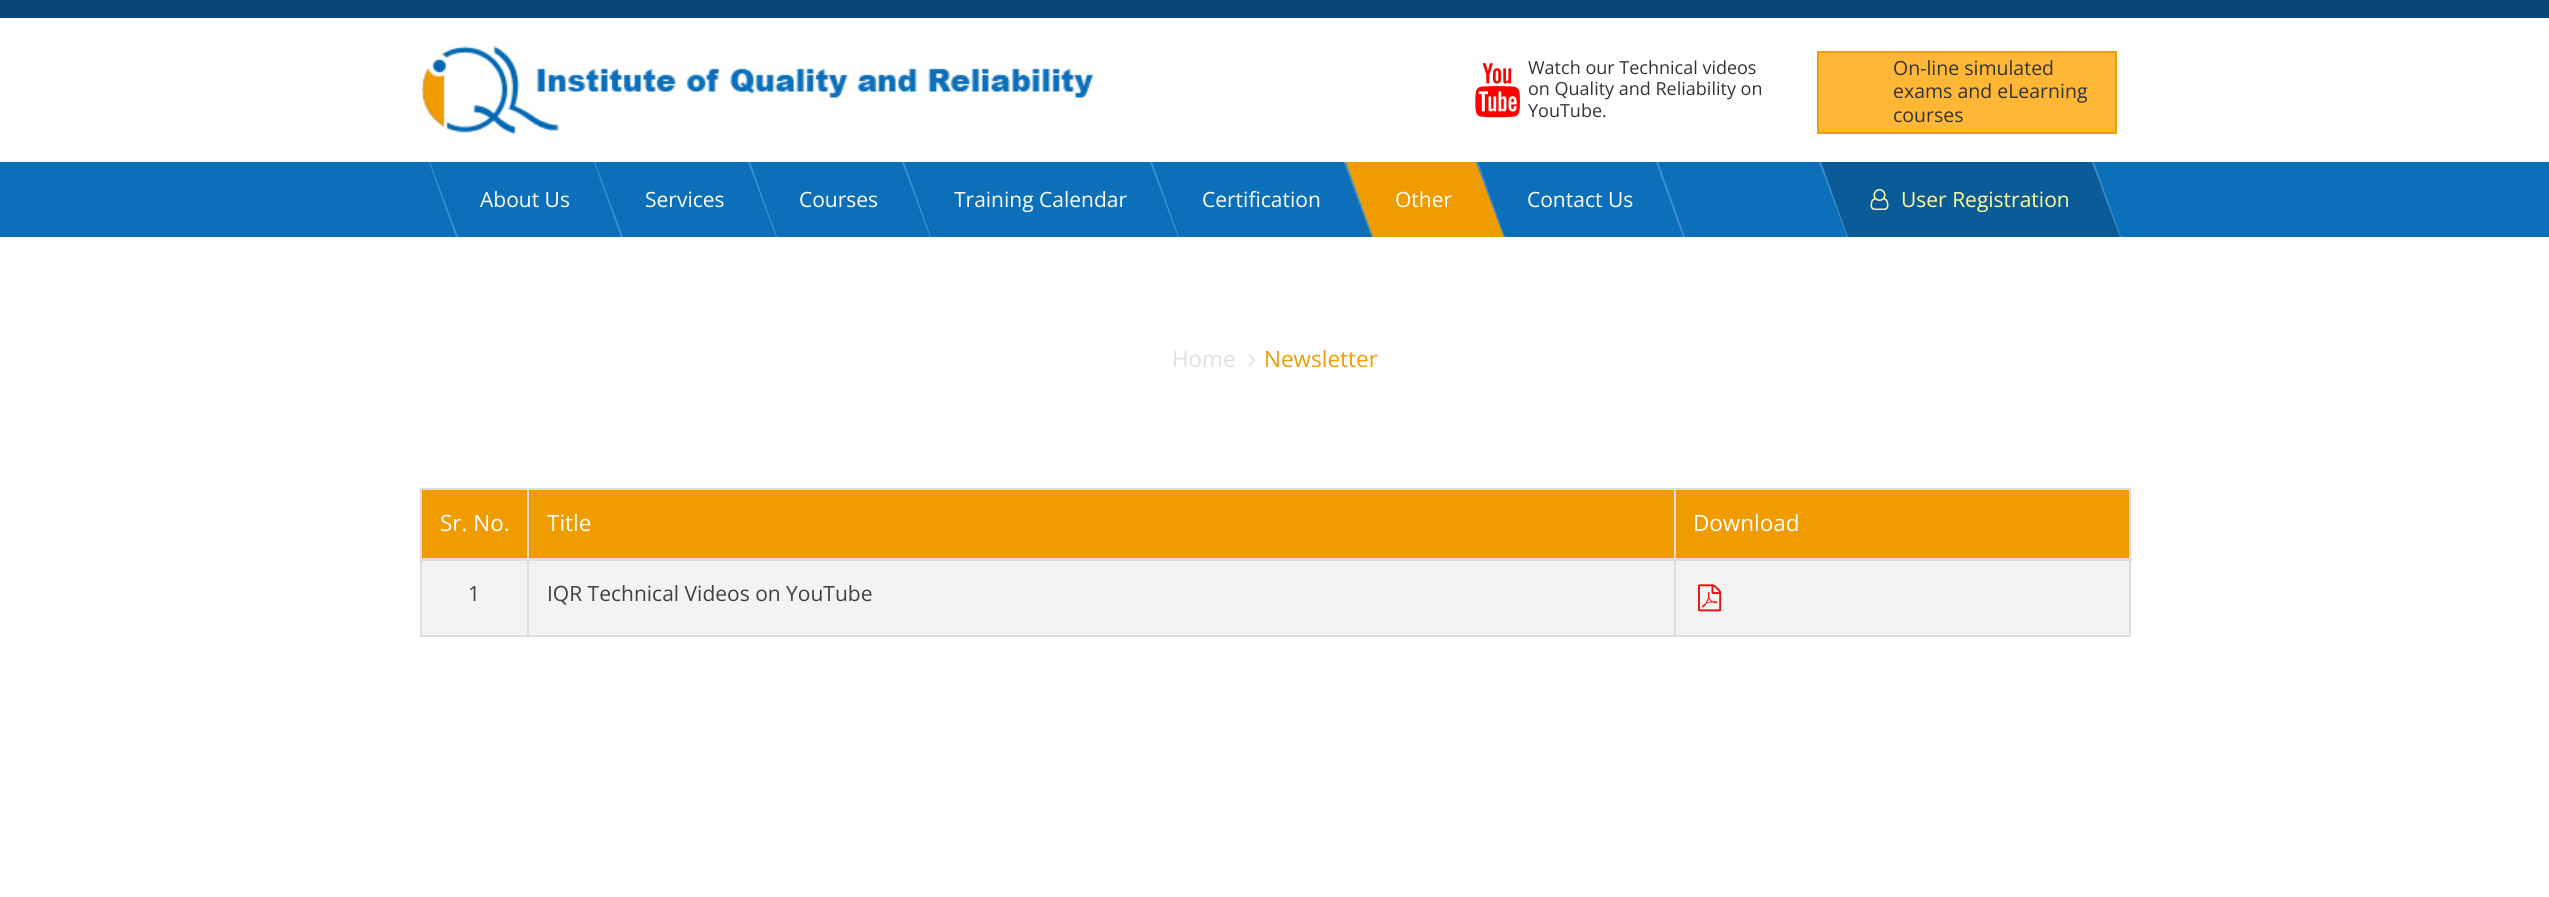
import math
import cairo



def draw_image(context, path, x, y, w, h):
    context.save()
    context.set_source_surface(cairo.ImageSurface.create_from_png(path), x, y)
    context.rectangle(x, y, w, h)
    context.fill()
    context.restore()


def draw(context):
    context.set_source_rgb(1, 1, 1)
    context.paint()
    context.set_source_rgb(8 / 255, 71 / 255, 118 / 255)
    context.rectangle(0, 0, 2549, 18)
    context.fill()
    draw_image(context, "images/1.png", 421, 44, 673, 90)
    draw_image(context, "images/2.png", 1475, 63, 45, 55)
    context.set_source_rgb(1, 183 / 255, 53 / 255)
    context.rectangle(1818, 52, 298, 81)
    context.fill_preserve()
    context.set_source_rgb(236 / 255, 158 / 255, 16 / 255)
    context.stroke()
    context.set_source_rgb(11 / 255, 111 / 255, 185 / 255)
    context.rectangle(0, 162, 2549, 75)
    context.fill()
    context.set_source_rgb(62 / 255, 145 / 255, 208 / 255)
    context.new_path()
    context.move_to(429, 162)
    context.line_to(430, 162)
    context.line_to(458, 237)
    context.line_to(456, 237)
    context.close_path()
    context.fill()
    context.new_path()
    context.move_to(594, 162)
    context.line_to(595, 162)
    context.line_to(623, 237)
    context.line_to(621, 237)
    context.close_path()
    context.fill()
    context.new_path()
    context.move_to(748, 162)
    context.line_to(750, 162)
    context.line_to(777, 237)
    context.line_to(776, 237)
    context.close_path()
    context.fill()
    context.new_path()
    context.move_to(902, 162)
    context.line_to(904, 162)
    context.line_to(931, 237)
    context.line_to(930, 237)
    context.close_path()
    context.fill()
    context.new_path()
    context.move_to(1150, 162)
    context.line_to(1152, 162)
    context.line_to(1179, 237)
    context.line_to(1178, 237)
    context.close_path()
    context.fill()
    context.set_source_rgb(240 / 255, 155 / 255, 0)
    context.new_path()
    context.move_to(1344, 162)
    context.line_to(1476, 162)
    context.line_to(1504, 237)
    context.line_to(1372, 237)
    context.close_path()
    context.fill()
    context.set_source_rgb(62 / 255, 145 / 255, 208 / 255)
    context.new_path()
    context.move_to(1344, 162)
    context.line_to(1346, 162)
    context.line_to(1373, 237)
    context.line_to(1372, 237)
    context.close_path()
    context.fill()
    context.new_path()
    context.move_to(1656, 162)
    context.line_to(1658, 162)
    context.line_to(1685, 237)
    context.line_to(1683, 237)
    context.close_path()
    context.fill()
    context.new_path()
    context.move_to(1476, 162)
    context.line_to(1478, 162)
    context.line_to(1505, 237)
    context.line_to(1504, 237)
    context.close_path()
    context.fill()
    context.set_source_rgb(10 / 255, 91 / 255, 152 / 255)
    context.new_path()
    context.move_to(1819, 162)
    context.line_to(2094, 162)
    context.line_to(2121, 237)
    context.line_to(1847, 237)
    context.close_path()
    context.fill()
    context.set_source_rgb(62 / 255, 145 / 255, 208 / 255)
    context.new_path()
    context.move_to(2092, 162)
    context.line_to(2094, 162)
    context.line_to(2121, 237)
    context.line_to(2120, 237)
    context.close_path()
    context.fill()
    context.new_path()
    context.move_to(1819, 162)
    context.line_to(1821, 162)
    context.line_to(1848, 237)
    context.line_to(1847, 237)
    context.close_path()
    context.fill()
    draw_image(context, "images/3.png", 1870, 189, 19, 21)
    draw_image(context, "images/4.png", 1248, 354, 8, 13)
    context.set_source_rgb(221 / 255, 221 / 255, 221 / 255)
    context.rectangle(420, 488, 1710, 2)
    context.fill()
    context.rectangle(2129, 488, 2, 148)
    context.fill()
    context.rectangle(420, 635, 1710, 2)
    context.fill()
    context.rectangle(420, 488, 2, 148)
    context.fill()
    context.set_source_rgb(240 / 255, 155 / 255, 0)
    context.rectangle(422, 490, 1707, 68)
    context.fill()
    context.set_source_rgb(243 / 255, 243 / 255, 243 / 255)
    context.rectangle(422, 561, 1707, 74)
    context.fill()
    context.set_source_rgb(221 / 255, 221 / 255, 221 / 255)
    context.rectangle(527, 488, 2, 148)
    context.fill()
    context.rectangle(1674, 488, 2, 148)
    context.fill()
    context.rectangle(420, 558, 1712, 3)
    context.fill()
    draw_image(context, "images/5.png", 1698, 584, 24, 28)
    context.select_font_face("Open Sans")
    context.set_font_size(18)
    context.set_source_rgb(51 / 255, 51 / 255, 51 / 255)
    context.move_to(1528, 74)
    context.show_text("Watch our Technical videos")
    context.move_to(1528, 95)
    context.show_text("on Quality and Reliability on")
    context.move_to(1528, 117)
    context.show_text("YouTube.")
    context.set_font_size(19.5)
    context.move_to(1893, 75)
    context.show_text("On-line simulated")
    context.move_to(1893, 98)
    context.show_text("exams and eLearning")
    context.move_to(1893, 122)
    context.show_text("courses")
    context.set_font_size(21)
    context.set_source_rgb(1, 1, 1)
    context.move_to(480, 207)
    context.show_text("About Us")
    context.move_to(645, 207)
    context.show_text("Services")
    context.move_to(799, 207)
    context.show_text("Courses")
    context.move_to(954, 207)
    context.show_text("Training Calendar")
    context.move_to(1202, 207)
    context.show_text("Certification")
    context.move_to(1395, 207)
    context.show_text("Other")
    context.move_to(1527, 207)
    context.show_text("Contact Us")
    context.set_source_rgb(1, 1, 153 / 255)
    context.move_to(1901, 207)
    context.show_text("User Registration")
    context.set_font_size(22.5)
    context.set_source_rgb(225 / 255, 225 / 255, 225 / 255)
    context.move_to(1172, 367)
    context.show_text("Home")
    context.set_source_rgb(240 / 255, 155 / 255, 0)
    context.move_to(1264, 367)
    context.show_text("Newsletter")
    context.set_source_rgb(1, 1, 1)
    context.move_to(440, 531)
    context.show_text("Sr. No.")
    context.move_to(547, 531)
    context.show_text("Title")
    context.move_to(1693, 531)
    context.show_text("Download")
    context.set_font_size(21)
    context.set_source_rgb(64 / 255, 64 / 255, 64 / 255)
    context.move_to(468, 601)
    context.show_text("1")
    context.move_to(547, 601)
    context.show_text("IQR Technical Videos on YouTube")


surface = cairo.ImageSurface(cairo.Format.RGB24, 2549, 897)
context = cairo.Context(surface)
options = cairo.FontOptions()
options.set_hint_metrics(cairo.HintMetrics.OFF)
options.set_hint_style(cairo.HintStyle.NONE)
context.set_font_options(options)
context.set_miter_limit(4)
draw(context)
surface.write_to_png("out.png")
